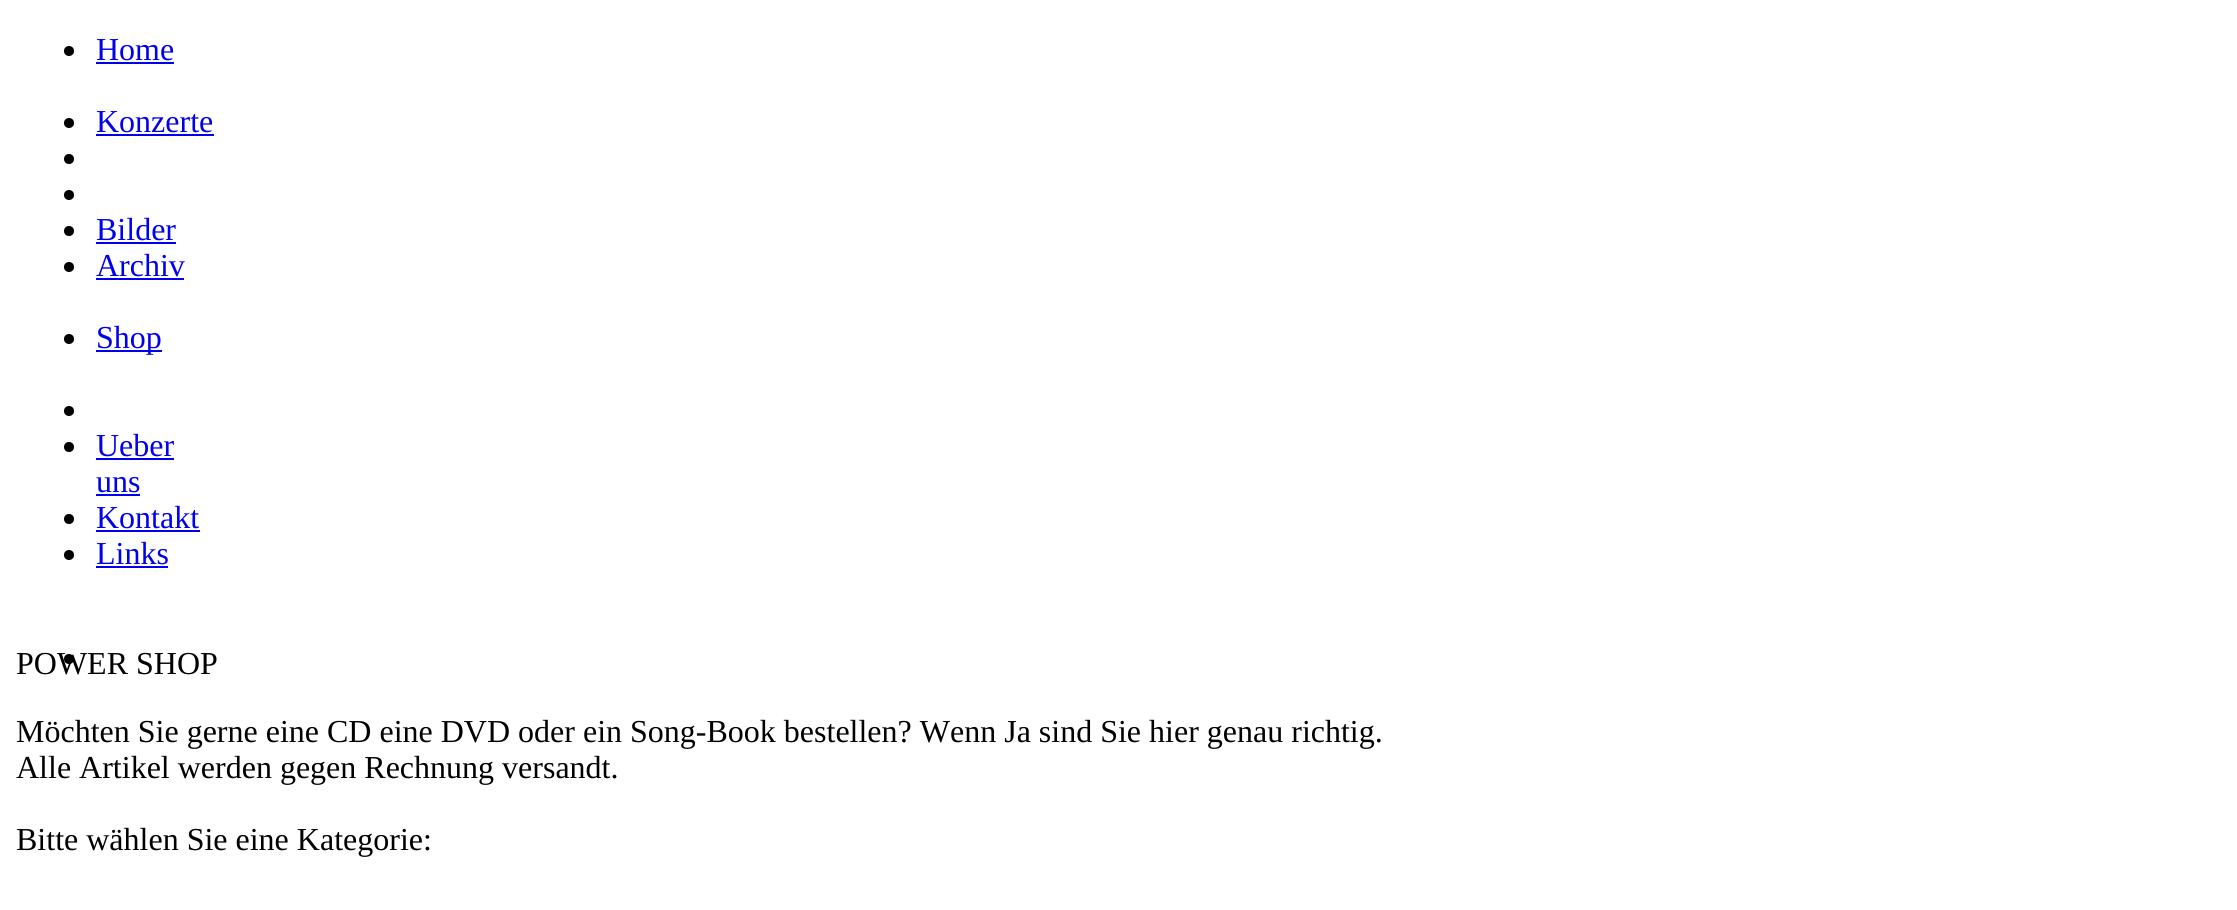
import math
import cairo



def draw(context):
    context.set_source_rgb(1, 1, 1)
    context.paint()
    context.set_source_rgb(0, 0, 0)
    context.arc(69, 51, 5, 0, 2 * math.pi)
    context.fill()
    context.set_source_rgb(0, 0, 238 / 255)
    context.rectangle(96, 62, 78, 2)
    context.fill()
    context.set_source_rgb(0, 0, 0)
    context.arc(69, 123, 5, 0, 2 * math.pi)
    context.fill()
    context.set_source_rgb(0, 0, 238 / 255)
    context.rectangle(96, 134, 118, 2)
    context.fill()
    context.set_source_rgb(0, 0, 0)
    context.arc(69, 159, 5, 0, 2 * math.pi)
    context.fill()
    context.arc(69, 195, 5, 0, 2 * math.pi)
    context.fill()
    context.arc(69, 231, 5, 0, 2 * math.pi)
    context.fill()
    context.set_source_rgb(0, 0, 238 / 255)
    context.rectangle(96, 242, 80, 2)
    context.fill()
    context.set_source_rgb(0, 0, 0)
    context.arc(69, 267, 5, 0, 2 * math.pi)
    context.fill()
    context.set_source_rgb(0, 0, 238 / 255)
    context.rectangle(96, 278, 88, 2)
    context.fill()
    context.set_source_rgb(0, 0, 0)
    context.arc(69, 339, 5, 0, 2 * math.pi)
    context.fill()
    context.set_source_rgb(0, 0, 238 / 255)
    context.rectangle(96, 350, 66, 2)
    context.fill()
    context.set_source_rgb(0, 0, 0)
    context.arc(69, 411, 5, 0, 2 * math.pi)
    context.fill()
    context.arc(69, 447, 5, 0, 2 * math.pi)
    context.fill()
    context.set_source_rgb(0, 0, 238 / 255)
    context.rectangle(96, 458, 78, 2)
    context.fill()
    context.rectangle(96, 494, 44, 2)
    context.fill()
    context.set_source_rgb(0, 0, 0)
    context.arc(69, 519, 5, 0, 2 * math.pi)
    context.fill()
    context.set_source_rgb(0, 0, 238 / 255)
    context.rectangle(96, 530, 104, 2)
    context.fill()
    context.set_source_rgb(0, 0, 0)
    context.arc(69, 555, 5, 0, 2 * math.pi)
    context.fill()
    context.set_source_rgb(0, 0, 238 / 255)
    context.rectangle(96, 566, 72, 2)
    context.fill()
    context.set_source_rgb(0, 0, 0)
    context.arc(69, 659, 5, 0, 2 * math.pi)
    context.fill()
    context.select_font_face("Liberation Serif")
    context.set_font_size(32)
    context.set_source_rgb(0, 0, 238 / 255)
    context.move_to(96, 60)
    context.show_text("Home")
    context.move_to(96, 132)
    context.show_text("Konzerte")
    context.move_to(96, 240)
    context.show_text("Bilder")
    context.move_to(96, 276)
    context.show_text("Archiv")
    context.move_to(96, 348)
    context.show_text("Shop")
    context.move_to(96, 456)
    context.show_text("Ueber")
    context.move_to(96, 492)
    context.show_text("uns")
    context.move_to(96, 528)
    context.show_text("Kontakt")
    context.move_to(96, 564)
    context.show_text("Links")
    context.set_source_rgb(0, 0, 0)
    context.move_to(16, 674)
    context.show_text("POWER SHOP")
    context.move_to(16, 742)
    context.show_text("Möchten Sie gerne eine CD eine DVD oder ein Song-Book bestellen? Wenn Ja sind Sie hier genau richtig.")
    context.move_to(16, 778)
    context.show_text("Alle Artikel werden gegen Rechnung versandt.")
    context.move_to(16, 850)
    context.show_text("Bitte wählen Sie eine Kategorie:")


surface = cairo.ImageSurface(cairo.Format.RGB24, 2237, 910)
context = cairo.Context(surface)
options = cairo.FontOptions()
options.set_hint_metrics(cairo.HintMetrics.OFF)
options.set_hint_style(cairo.HintStyle.NONE)
context.set_font_options(options)
context.set_miter_limit(4)
draw(context)
surface.write_to_png("out.png")
